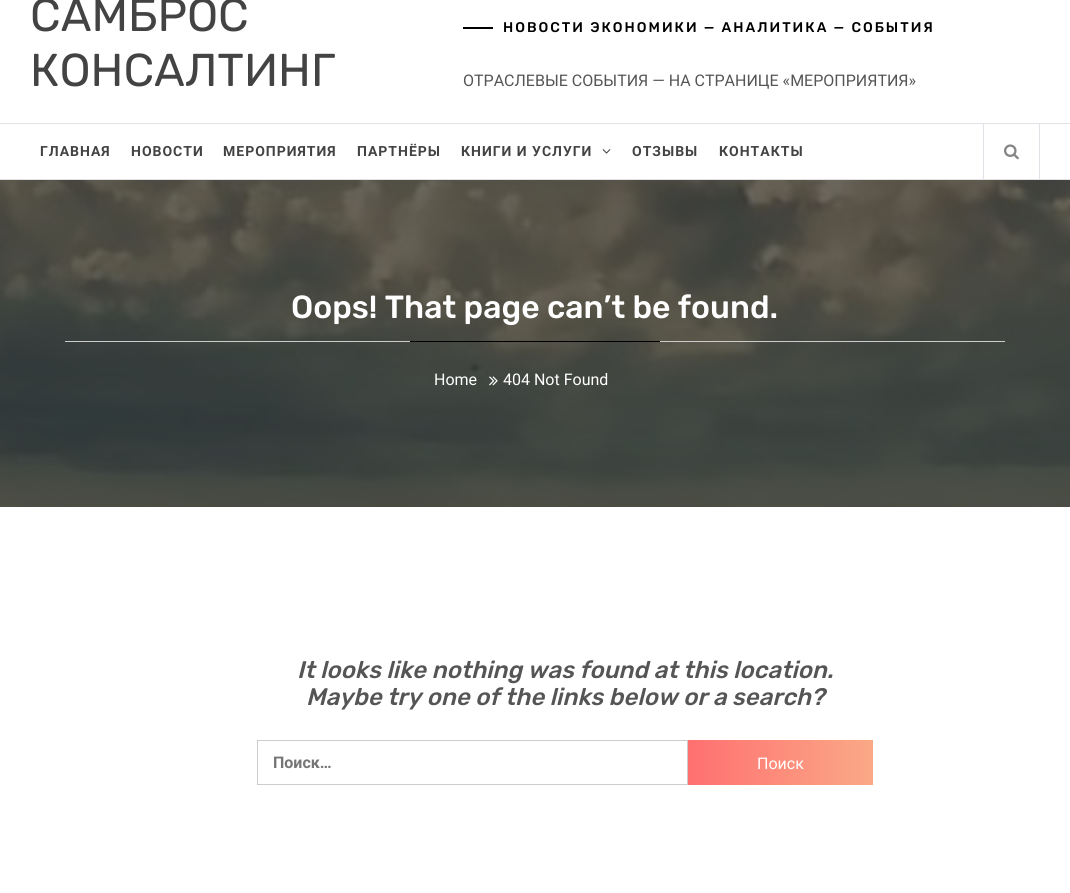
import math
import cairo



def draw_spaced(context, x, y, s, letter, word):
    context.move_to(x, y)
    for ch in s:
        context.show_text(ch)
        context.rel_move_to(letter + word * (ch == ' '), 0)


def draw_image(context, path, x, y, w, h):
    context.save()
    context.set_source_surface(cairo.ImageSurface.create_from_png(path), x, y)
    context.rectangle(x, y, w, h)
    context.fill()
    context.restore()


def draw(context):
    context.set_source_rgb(1, 1, 1)
    context.paint()
    context.set_source_rgb(0, 0, 0)
    context.rectangle(463, 27, 30, 2)
    context.fill()
    context.set_source_rgb(226 / 255, 225 / 255, 232 / 255)
    context.rectangle(0, 123, 1070, 1)
    context.fill()
    context.rectangle(0, 179, 1070, 1)
    context.fill()
    draw_image(context, "images/1.png", 602, 149, 9, 5)
    context.rectangle(1039, 124, 1, 55)
    context.fill()
    context.rectangle(983, 124, 1, 55)
    context.fill()
    draw_image(context, "images/2.png", 1004, 144, 15, 16)
    draw_image(context, "images/3.png", 0, 180, 1070, 327)
    context.set_source_rgb(204 / 255, 204 / 255, 204 / 255)
    context.rectangle(65, 341, 940, 1)
    context.fill()
    context.set_source_rgb(0, 0, 0)
    context.rectangle(410, 341, 250, 1)
    context.fill()
    draw_image(context, "images/4.png", 489, 376, 9, 10)
    context.rectangle(257.5, 740.5, 430, 44)
    context.set_source_rgb(204 / 255, 204 / 255, 204 / 255)
    context.set_line_width(1)
    context.stroke()
    gradient = cairo.LinearGradient(688, 763, 873, 763)
    gradient.add_color_stop_rgba(0, 1, 112 / 255, 112 / 255, 1)
    gradient.add_color_stop_rgba(1, 250 / 255, 169 / 255, 135 / 255, 1)
    context.set_source(gradient)
    context.rectangle(688, 740, 185, 45)
    context.fill()
    context.select_font_face("Rubik")
    context.set_font_size(46)
    context.set_source_rgb(67 / 255, 67 / 255, 67 / 255)
    context.move_to(30, 31)
    context.show_text("САМБРОС")
    context.move_to(30, 86)
    context.show_text("КОНСАЛТИНГ")
    context.select_font_face("Rubik Medium")
    context.set_font_size(14)
    context.set_source_rgb(0, 0, 0)
    draw_spaced(context, 503, 32, "НОВОСТИ ЭКОНОМИКИ — АНАЛИТИКА — СОБЫТИЯ", 2, 0)
    context.select_font_face("Roboto")
    context.set_font_size(16)
    context.set_source_rgb(85 / 255, 85 / 255, 85 / 255)
    context.move_to(463, 86)
    context.show_text("ОТРАСЛЕВЫЕ СОБЫТИЯ — НА СТРАНИЦЕ «МЕРОПРИЯТИЯ»")
    context.select_font_face("Roboto", cairo.FontSlant.NORMAL, cairo.FontWeight.BOLD)
    context.set_font_size(14)
    context.set_source_rgb(67 / 255, 67 / 255, 67 / 255)
    draw_spaced(context, 40, 156, "ГЛАВНАЯ", 1, 0)
    draw_spaced(context, 131, 156, "НОВОСТИ", 1, 0)
    draw_spaced(context, 223, 156, "МЕРОПРИЯТИЯ", 1, 0)
    draw_spaced(context, 357, 156, "ПАРТНЁРЫ", 1, 0)
    draw_spaced(context, 461, 156, "КНИГИ И УСЛУГИ", 1, 0)
    draw_spaced(context, 632, 156, "ОТЗЫВЫ", 1, 0)
    draw_spaced(context, 719, 156, "КОНТАКТЫ", 1, 0)
    context.select_font_face("Rubik Medium")
    context.set_font_size(32)
    context.set_source_rgb(1, 1, 1)
    context.move_to(291, 318)
    context.show_text("Oops! That page can’t be found.")
    context.select_font_face("Roboto")
    context.set_font_size(16)
    context.move_to(434, 385)
    context.show_text("Home")
    context.move_to(503, 385)
    context.show_text("404 Not Found")
    context.select_font_face("Rubik Medium", cairo.FontSlant.ITALIC)
    context.set_font_size(24)
    context.set_source_rgb(85 / 255, 85 / 255, 85 / 255)
    context.move_to(297, 678)
    context.show_text("It looks like nothing was found at this location.")
    context.move_to(306, 705)
    context.show_text("Maybe try one of the links below or a search?")
    context.select_font_face("Roboto", cairo.FontSlant.NORMAL, cairo.FontWeight.BOLD)
    context.set_font_size(16)
    context.set_source_rgb(117 / 255, 117 / 255, 117 / 255)
    context.move_to(273, 768)
    context.show_text("Поиск…")
    context.select_font_face("Roboto")
    context.set_source_rgb(1, 1, 1)
    context.move_to(757, 769)
    context.show_text("Поиск")


surface = cairo.ImageSurface(cairo.Format.RGB24, 1070, 893)
context = cairo.Context(surface)
options = cairo.FontOptions()
options.set_hint_metrics(cairo.HintMetrics.OFF)
options.set_hint_style(cairo.HintStyle.NONE)
context.set_font_options(options)
context.set_miter_limit(4)
draw(context)
surface.write_to_png("out.png")
